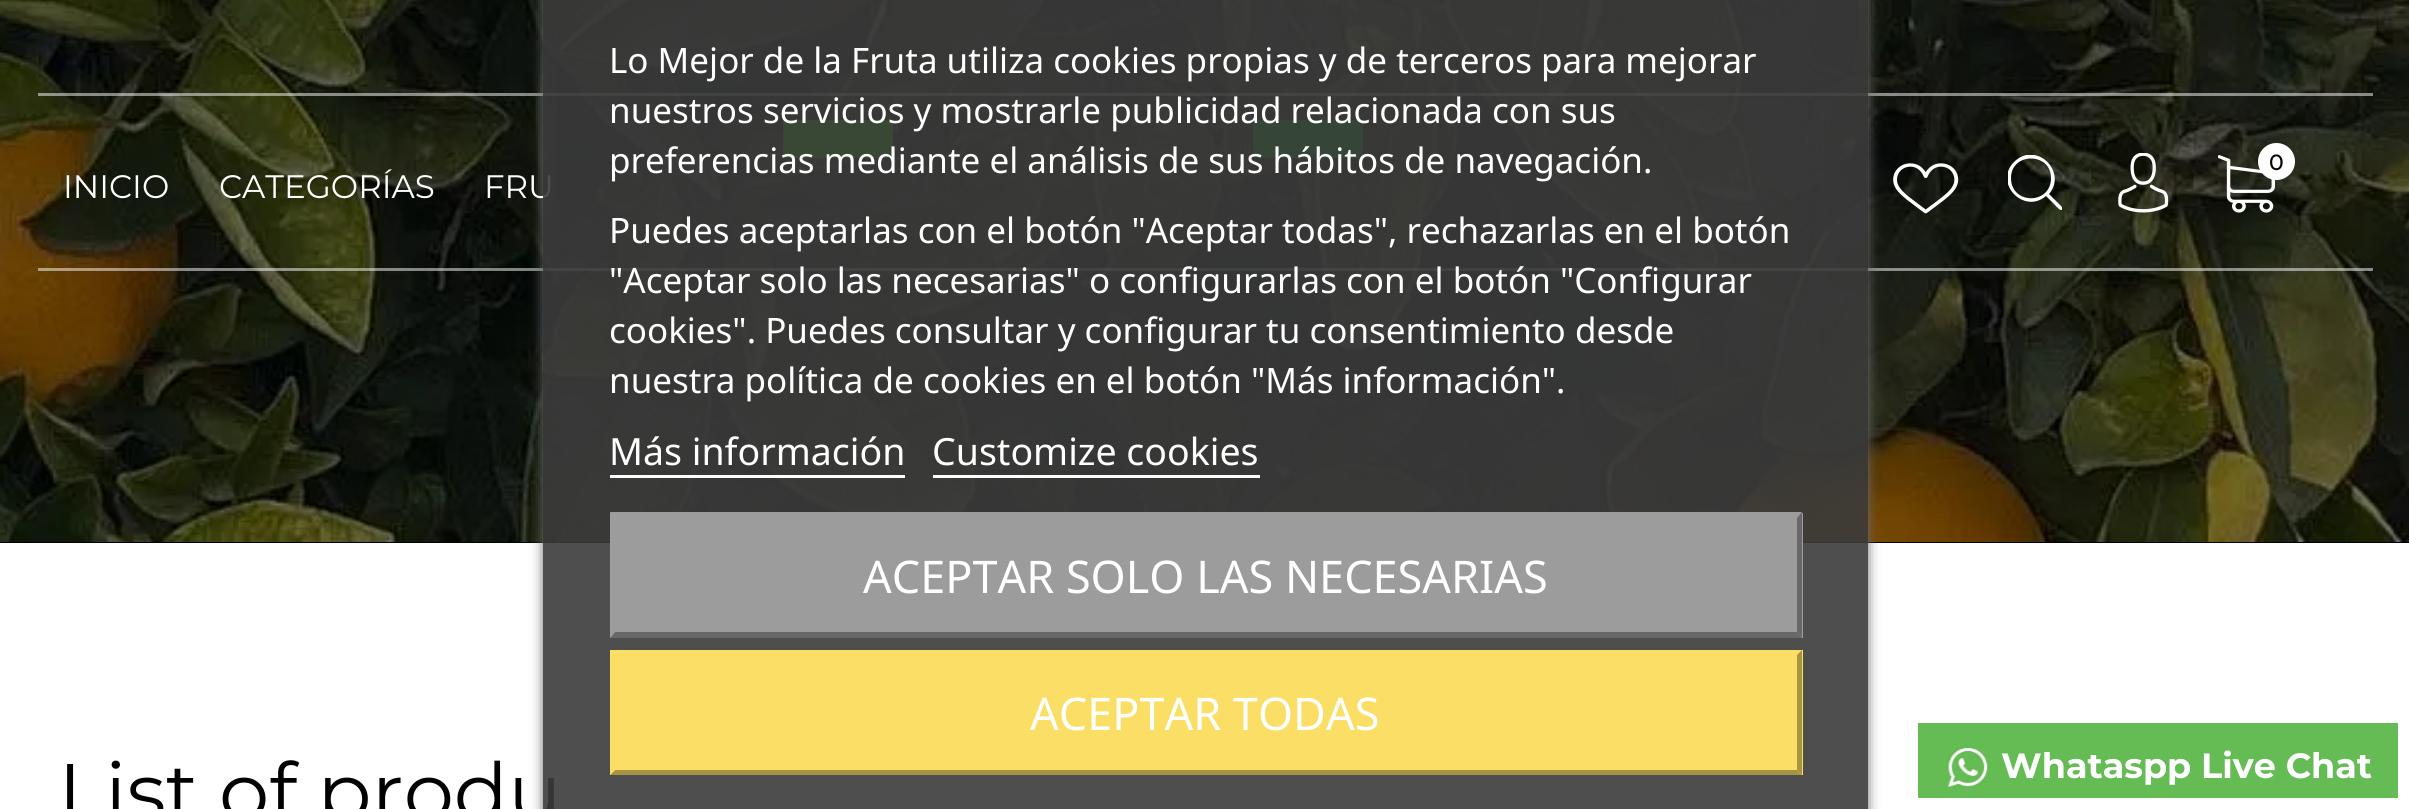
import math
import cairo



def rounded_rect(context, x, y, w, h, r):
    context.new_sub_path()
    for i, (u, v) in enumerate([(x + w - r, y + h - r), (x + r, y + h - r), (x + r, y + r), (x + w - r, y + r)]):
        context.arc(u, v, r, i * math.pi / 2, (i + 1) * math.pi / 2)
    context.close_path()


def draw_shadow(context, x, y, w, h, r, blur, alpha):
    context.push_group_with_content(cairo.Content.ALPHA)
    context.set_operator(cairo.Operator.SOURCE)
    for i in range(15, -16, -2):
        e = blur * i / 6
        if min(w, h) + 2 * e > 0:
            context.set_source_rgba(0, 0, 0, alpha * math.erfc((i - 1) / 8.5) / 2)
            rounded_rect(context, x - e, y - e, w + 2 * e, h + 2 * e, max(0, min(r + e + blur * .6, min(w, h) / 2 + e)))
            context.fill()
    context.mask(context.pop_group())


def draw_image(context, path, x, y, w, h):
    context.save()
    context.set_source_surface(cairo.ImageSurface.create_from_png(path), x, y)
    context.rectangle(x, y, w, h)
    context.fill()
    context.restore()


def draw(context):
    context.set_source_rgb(1, 1, 1)
    context.paint()
    context.set_source_rgb(0, 0, 0)
    context.rectangle(0, 542, 2409, 1)
    context.fill()
    draw_image(context, "images/2.png", 0, 0, 2409, 542)
    context.set_source_rgba(1, 1, 1, 0.5)
    context.rectangle(38, 93, 2335, 3)
    context.fill()
    context.rectangle(38, 268, 2335, 3)
    context.fill()
    context.set_source_rgb(0, 169 / 255, 32 / 255)
    rounded_rect(context, 1253, 120, 110, 38, 2.5)
    context.fill()
    context.set_source_rgb(38 / 255, 187 / 255, 0)
    rounded_rect(context, 783, 120, 110, 38, 2.5)
    context.fill()
    context.save()
    context.set_fill_rule(cairo.FillRule.EVEN_ODD)
    context.new_path()
    context.move_to(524, 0)
    context.line_to(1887, 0)
    context.line_to(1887, 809)
    context.line_to(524, 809)
    context.close_path()
    context.move_to(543, -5)
    context.line_to(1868, -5)
    context.line_to(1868, 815)
    context.line_to(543, 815)
    context.close_path()
    context.clip()
    context.set_source_rgb(112 / 255, 112 / 255, 112 / 255)
    draw_shadow(context, 543, -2, 1325, 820, 0, 6, 1)
    context.restore()
    context.set_source_rgb(101 / 255, 188 / 255, 84 / 255)
    context.rectangle(1918, 723, 480, 75)
    context.fill()
    draw_image(context, "images/1.png", 1943, 744, 48, 47)
    draw_image(context, "images/3.png", 1893, 163, 66, 51)
    context.save()
    context.rectangle(2008, 155, 55, 55)
    context.clip()
    context.set_source_rgb(1, 1, 1)
    context.set_fill_rule(cairo.FillRule.EVEN_ODD)
    context.new_path()
    context.move_to(2062, 207)
    context.line_to(2049, 194)
    context.curve_to(2068, 172, 2036, 140, 2014, 162)
    context.curve_to(1993, 183, 2024, 215, 2046, 196)
    context.line_to(2055, 205)
    context.curve_to(2056, 206, 2060, 211, 2062, 210)
    context.line_to(2062, 208)
    context.close_path()
    context.move_to(2011, 178)
    context.curve_to(2011, 152, 2051, 152, 2051, 178)
    context.curve_to(2051, 205, 2011, 205, 2011, 178)
    context.close_path()
    context.fill()
    context.restore()
    draw_image(context, "images/4.png", 2118, 153, 51, 60)
    draw_image(context, "images/5.png", 2218, 155, 57, 58)
    context.set_source_rgb(1, 1, 1)
    context.arc(2276.5, 161.5, 18.5, 0, 2 * math.pi)
    context.fill()
    context.select_font_face("Montserrat", cairo.FontSlant.NORMAL, cairo.FontWeight.BOLD)
    context.set_font_size(35)
    context.move_to(2001, 778)
    context.show_text("Whataspp Live Chat")
    context.select_font_face("Montserrat Medium")
    context.set_font_size(22)
    context.set_source_rgb(0, 0, 0)
    context.move_to(2269, 170)
    context.show_text("0")
    context.select_font_face("Montserrat")
    context.set_font_size(32.5)
    context.set_source_rgb(1, 1, 1)
    context.move_to(63, 198)
    context.show_text("INICIO")
    context.move_to(219, 198)
    context.show_text("CATEGORÍAS")
    context.move_to(484, 198)
    context.show_text("FRU")
    context.set_font_size(80)
    context.set_source_rgb(0, 0, 0)
    context.move_to(58, 820)
    context.show_text("List of produ")
    context.set_source_rgba(59 / 255, 59 / 255, 59 / 255, 0.9)
    context.rectangle(543, 0, 1325, 809)
    context.fill()
    context.select_font_face("Noto Sans")
    context.set_font_size(37.5)
    context.set_source_rgb(1, 1, 1)
    context.move_to(932, 465)
    context.show_text("Customize cookies")
    context.rectangle(933, 475, 327, 3)
    context.fill()
    context.move_to(609, 465)
    context.show_text("Más información")
    context.rectangle(610, 475, 295, 3)
    context.fill()
    context.set_font_size(35)
    context.move_to(609, 393)
    context.show_text("nuestra política de cookies en el botón \"Más información\".")
    context.move_to(609, 343)
    context.show_text("cookies\". Puedes consultar y configurar tu consentimiento desde")
    context.move_to(609, 293)
    context.show_text("\"Aceptar solo las necesarias\" o configurarlas con el botón \"Configurar")
    context.move_to(609, 243)
    context.show_text("Puedes aceptarlas con el botón \"Aceptar todas\", rechazarlas en el botón")
    context.move_to(609, 173)
    context.show_text("preferencias mediante el análisis de sus hábitos de navegación.")
    context.move_to(609, 123)
    context.show_text("nuestros servicios y mostrarle publicidad relacionada con sus")
    context.move_to(609, 73)
    context.show_text("Lo Mejor de la Fruta utiliza cookies propias y de terceros para mejorar")
    context.set_source_rgb(250 / 255, 222 / 255, 101 / 255)
    context.rectangle(610, 650, 1193, 125)
    context.fill()
    context.set_font_size(45)
    context.set_source_rgb(1, 1, 1)
    context.move_to(1030, 730)
    context.show_text("ACEPTAR TODAS")
    context.set_source_rgb(167 / 255, 148 / 255, 67 / 255)
    context.new_path()
    context.move_to(1802, 650)
    context.line_to(1802, 775)
    context.line_to(1797, 770)
    context.line_to(1797, 655)
    context.close_path()
    context.fill()
    context.new_path()
    context.move_to(1802, 775)
    context.line_to(610, 775)
    context.line_to(615, 770)
    context.line_to(1797, 770)
    context.close_path()
    context.fill()
    context.set_source_rgb(250 / 255, 222 / 255, 101 / 255)
    context.new_path()
    context.move_to(610, 775)
    context.line_to(610, 650)
    context.line_to(615, 655)
    context.line_to(615, 770)
    context.close_path()
    context.fill()
    context.set_source_rgb(156 / 255, 156 / 255, 156 / 255)
    context.rectangle(610, 513, 1193, 125)
    context.fill()
    context.set_source_rgb(1, 1, 1)
    context.move_to(863, 593)
    context.show_text("ACEPTAR SOLO LAS NECESARIAS")
    context.set_source_rgb(156 / 255, 156 / 255, 156 / 255)
    context.new_path()
    context.move_to(610, 512)
    context.line_to(1802, 512)
    context.line_to(1797, 518)
    context.line_to(615, 518)
    context.close_path()
    context.fill()
    context.set_source_rgb(104 / 255, 104 / 255, 104 / 255)
    context.new_path()
    context.move_to(1802, 512)
    context.line_to(1802, 638)
    context.line_to(1797, 632)
    context.line_to(1797, 518)
    context.close_path()
    context.fill()
    context.new_path()
    context.move_to(1802, 638)
    context.line_to(610, 638)
    context.line_to(615, 632)
    context.line_to(1797, 632)
    context.close_path()
    context.fill()
    context.set_source_rgb(156 / 255, 156 / 255, 156 / 255)
    context.new_path()
    context.move_to(610, 638)
    context.line_to(610, 512)
    context.line_to(615, 518)
    context.line_to(615, 632)
    context.close_path()
    context.fill()


surface = cairo.ImageSurface(cairo.Format.RGB24, 2409, 809)
context = cairo.Context(surface)
options = cairo.FontOptions()
options.set_hint_metrics(cairo.HintMetrics.OFF)
options.set_hint_style(cairo.HintStyle.NONE)
context.set_font_options(options)
context.set_miter_limit(4)
draw(context)
surface.write_to_png("out.png")
